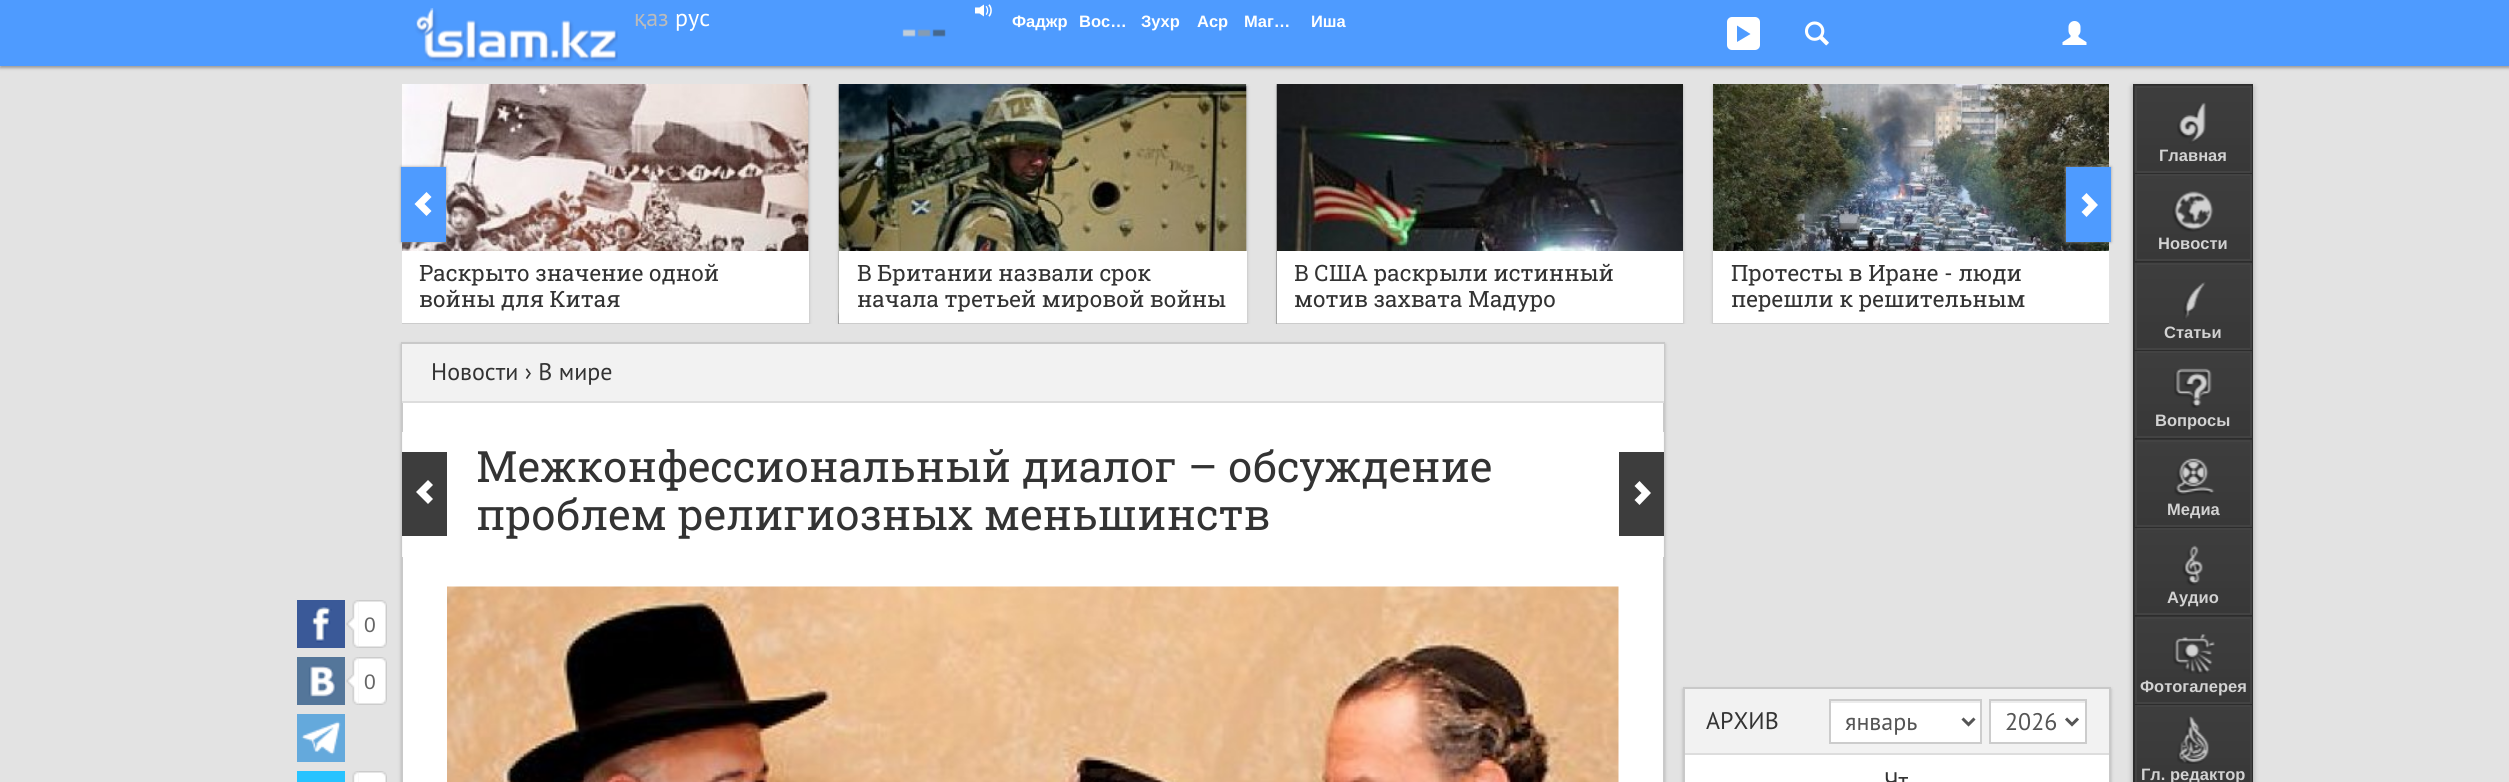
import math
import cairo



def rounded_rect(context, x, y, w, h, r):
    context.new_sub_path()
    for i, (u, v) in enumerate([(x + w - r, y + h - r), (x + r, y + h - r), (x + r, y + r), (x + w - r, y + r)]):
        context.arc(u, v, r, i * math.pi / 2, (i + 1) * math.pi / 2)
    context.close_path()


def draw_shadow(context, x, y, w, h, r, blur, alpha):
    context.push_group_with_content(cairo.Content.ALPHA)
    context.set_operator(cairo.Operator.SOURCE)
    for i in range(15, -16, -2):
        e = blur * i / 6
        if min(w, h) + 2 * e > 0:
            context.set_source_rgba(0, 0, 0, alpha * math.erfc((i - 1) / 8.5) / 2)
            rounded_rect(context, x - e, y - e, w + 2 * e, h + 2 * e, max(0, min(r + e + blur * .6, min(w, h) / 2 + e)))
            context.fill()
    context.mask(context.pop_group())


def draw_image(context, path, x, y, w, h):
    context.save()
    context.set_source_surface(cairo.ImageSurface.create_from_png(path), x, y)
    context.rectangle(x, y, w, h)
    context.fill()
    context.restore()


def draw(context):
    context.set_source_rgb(227 / 255, 227 / 255, 227 / 255)
    context.paint()
    context.set_source_rgb(153 / 255, 153 / 255, 153 / 255)
    draw_shadow(context, 0, 2, 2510, 66, 0, 1.5, 1)
    context.set_source_rgb(78 / 255, 155 / 255, 1)
    context.rectangle(0, 0, 2509, 66)
    context.fill()
    draw_image(context, "images/1.png", 415, 8, 203, 54)
    draw_image(context, "images/2.png", 975, 4, 17, 13)
    draw_image(context, "images/3.png", 902, 29, 44, 8)
    context.set_source_rgb(1, 1, 1)
    rounded_rect(context, 1727, 17, 33, 33, 5)
    context.fill()
    context.set_source_rgb(78 / 255, 155 / 255, 1)
    context.new_path()
    context.move_to(1737, 42)
    context.line_to(1750.5, 34)
    context.line_to(1737, 25.5)
    context.close_path()
    context.fill()
    draw_image(context, "images/4.png", 1805, 21, 24, 25)
    draw_image(context, "images/5.png", 2062, 21, 25, 24)
    context.save()
    context.rectangle(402, 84, 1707, 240)
    context.clip()
    context.set_source_rgb(179 / 255, 179 / 255, 179 / 255)
    draw_shadow(context, 402, 86, 407, 240, 0, 1.5, 1)
    context.restore()
    context.set_source_rgb(1, 1, 1)
    rounded_rect(context, 402, 84, 407, 2, 1)
    context.fill()
    draw_image(context, "images/6.png", 402, 84, 407, 167)
    context.set_source_rgb(153 / 255, 153 / 255, 153 / 255)
    draw_shadow(context, 401, 167, 45, 75, 0, 1.5, 1)
    context.set_source_rgb(78 / 255, 155 / 255, 1)
    context.rectangle(401, 167, 45, 75)
    context.fill()
    context.set_source_rgb(1, 1, 1)
    context.new_path()
    context.move_to(414.5, 204)
    context.line_to(426.5, 216)
    context.line_to(431.5, 211)
    context.line_to(424.5, 204)
    context.line_to(431.5, 197)
    context.line_to(426.5, 192)
    context.close_path()
    context.fill()
    context.save()
    context.rectangle(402, 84, 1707, 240)
    context.clip()
    context.set_source_rgb(179 / 255, 179 / 255, 179 / 255)
    draw_shadow(context, 1713, 86, 408, 240, 0, 1.5, 1)
    context.restore()
    draw_image(context, "images/9.png", 1713, 84, 396, 167)
    context.set_source_rgb(153 / 255, 153 / 255, 153 / 255)
    draw_shadow(context, 2066, 167, 45, 75, 0, 1.5, 1)
    context.set_source_rgb(78 / 255, 155 / 255, 1)
    context.rectangle(2066, 167, 45, 75)
    context.fill()
    context.set_source_rgb(1, 1, 1)
    context.new_path()
    context.move_to(2081.5, 212)
    context.line_to(2088.5, 205)
    context.line_to(2081.5, 198)
    context.line_to(2086.5, 193)
    context.line_to(2098, 205)
    context.line_to(2086.5, 217)
    context.close_path()
    context.fill()
    context.rectangle(402, 251, 407, 72)
    context.fill()
    context.set_source_rgb(204 / 255, 204 / 255, 204 / 255)
    context.rectangle(402, 323, 407, 1)
    context.fill()
    context.save()
    context.rectangle(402, 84, 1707, 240)
    context.clip()
    context.set_source_rgb(179 / 255, 179 / 255, 179 / 255)
    draw_shadow(context, 839, 86, 408, 240, 0, 1.5, 1)
    context.restore()
    context.set_source_rgb(1, 1, 1)
    rounded_rect(context, 839, 84, 408, 2, 1)
    context.fill()
    draw_image(context, "images/7.png", 838, 84, 409, 240)
    context.rectangle(839, 251, 408, 72)
    context.fill()
    context.set_source_rgb(204 / 255, 204 / 255, 204 / 255)
    context.rectangle(839, 323, 408, 1)
    context.fill()
    context.save()
    context.rectangle(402, 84, 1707, 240)
    context.clip()
    context.set_source_rgb(179 / 255, 179 / 255, 179 / 255)
    draw_shadow(context, 1277, 86, 406, 240, 0, 1.5, 1)
    context.restore()
    draw_image(context, "images/8.png", 1276, 84, 407, 240)
    context.set_source_rgb(1, 1, 1)
    context.rectangle(1277, 251, 406, 72)
    context.fill()
    context.set_source_rgb(204 / 255, 204 / 255, 204 / 255)
    context.rectangle(1277, 323, 406, 1)
    context.fill()
    context.set_source_rgb(1, 1, 1)
    context.rectangle(1713, 251, 396, 72)
    context.fill()
    context.set_source_rgb(204 / 255, 204 / 255, 204 / 255)
    context.rectangle(1713, 323, 396, 1)
    context.fill()
    context.set_source_rgb(0, 0, 0)
    draw_shadow(context, 2133, 87, 120, 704, 0, 3, 0.3)
    context.rectangle(2134, 85, 118, 88)
    context.set_source_rgb(44 / 255, 44 / 255, 44 / 255)
    context.stroke()
    draw_image(context, "images/10.png", 2134, 85, 118, 88)
    context.rectangle(2136, 87, 115, 85)
    context.set_source_rgb(67 / 255, 67 / 255, 67 / 255)
    context.stroke()
    draw_image(context, "images/11.png", 2177, 102, 29, 42)
    context.rectangle(2134, 174, 118, 88)
    context.set_source_rgb(44 / 255, 44 / 255, 44 / 255)
    context.stroke()
    draw_image(context, "images/12.png", 2137, 176, 113, 83)
    context.rectangle(2136, 175, 115, 85)
    context.set_source_rgb(67 / 255, 67 / 255, 67 / 255)
    context.stroke()
    draw_image(context, "images/13.png", 2172, 191, 42, 41)
    context.rectangle(2134, 262, 118, 88)
    context.set_source_rgb(44 / 255, 44 / 255, 44 / 255)
    context.stroke()
    draw_image(context, "images/14.png", 2134, 262, 118, 88)
    context.rectangle(2136, 264, 115, 85)
    context.set_source_rgb(67 / 255, 67 / 255, 67 / 255)
    context.stroke()
    draw_image(context, "images/15.png", 2183, 282, 23, 37)
    context.rectangle(2134, 351, 118, 88)
    context.set_source_rgb(44 / 255, 44 / 255, 44 / 255)
    context.stroke()
    draw_image(context, "images/16.png", 2134, 351, 116, 87)
    context.rectangle(2136, 352, 115, 85)
    context.set_source_rgb(67 / 255, 67 / 255, 67 / 255)
    context.stroke()
    draw_image(context, "images/17.png", 2174, 368, 38, 40)
    context.rectangle(2134, 439, 118, 88)
    context.set_source_rgb(44 / 255, 44 / 255, 44 / 255)
    context.stroke()
    draw_image(context, "images/18.png", 2135, 439, 117, 86)
    context.rectangle(2136, 441, 115, 85)
    context.set_source_rgb(67 / 255, 67 / 255, 67 / 255)
    context.stroke()
    draw_image(context, "images/19.png", 2174, 458, 41, 38)
    context.rectangle(2134, 528, 118, 88)
    context.set_source_rgb(44 / 255, 44 / 255, 44 / 255)
    context.stroke()
    draw_image(context, "images/16.png", 2134, 528, 116, 87)
    context.rectangle(2136, 529, 115, 85)
    context.set_source_rgb(67 / 255, 67 / 255, 67 / 255)
    context.stroke()
    draw_image(context, "images/20.png", 2182, 545, 21, 41)
    context.rectangle(2134, 616, 118, 88)
    context.set_source_rgb(44 / 255, 44 / 255, 44 / 255)
    context.stroke()
    draw_image(context, "images/18.png", 2135, 616, 117, 86)
    context.rectangle(2136, 618, 115, 85)
    context.set_source_rgb(67 / 255, 67 / 255, 67 / 255)
    context.stroke()
    draw_image(context, "images/21.png", 2173, 634, 42, 40)
    context.rectangle(2134, 705, 118, 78)
    context.set_source_rgb(44 / 255, 44 / 255, 44 / 255)
    context.stroke()
    draw_image(context, "images/22.png", 2137, 707, 113, 75)
    context.rectangle(2136, 706, 115, 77)
    context.set_source_rgb(67 / 255, 67 / 255, 67 / 255)
    context.stroke()
    draw_image(context, "images/23.png", 2177, 716, 32, 48)
    context.set_source_rgb(179 / 255, 179 / 255, 179 / 255)
    draw_shadow(context, 401, 344, 1264, 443, 0, 1.5, 1)
    context.set_source_rgb(1, 1, 1)
    context.rectangle(403, 403, 1260, 379)
    context.fill()
    context.rectangle(402, 343, 1262, 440)
    context.set_source_rgb(201 / 255, 201 / 255, 201 / 255)
    context.stroke()
    context.set_source_rgb(242 / 255, 242 / 255, 242 / 255)
    context.rectangle(402, 344, 1262, 57)
    context.fill()
    context.set_source_rgb(221 / 255, 221 / 255, 221 / 255)
    context.rectangle(402, 401, 1262, 2)
    context.fill()
    context.set_source_rgba(1, 1, 1, 0.9)
    context.rectangle(402, 432, 1262, 125)
    context.fill()
    context.set_source_rgb(61 / 255, 61 / 255, 61 / 255)
    context.rectangle(402, 452, 45, 84)
    context.fill()
    context.set_source_rgb(1, 1, 1)
    context.new_path()
    context.move_to(416, 492)
    context.line_to(428, 504)
    context.line_to(433, 499)
    context.line_to(426, 492)
    context.line_to(433, 485)
    context.line_to(428, 480)
    context.close_path()
    context.fill()
    context.set_source_rgb(61 / 255, 61 / 255, 61 / 255)
    context.rectangle(1619, 452, 45, 84)
    context.fill()
    context.set_source_rgb(1, 1, 1)
    context.new_path()
    context.move_to(1634.5, 500)
    context.line_to(1641.5, 493)
    context.line_to(1634.5, 486)
    context.line_to(1639.5, 481)
    context.line_to(1651, 493)
    context.line_to(1639.5, 505)
    context.close_path()
    context.fill()
    draw_image(context, "images/24.png", 297, 600, 48, 48)
    draw_image(context, "images/25.png", 358, 600, 29, 48)
    draw_image(context, "images/26.png", 346, 600, 13, 48)
    draw_image(context, "images/27.png", 297, 657, 48, 48)
    draw_image(context, "images/25.png", 358, 657, 29, 48)
    draw_image(context, "images/26.png", 346, 657, 13, 48)
    draw_image(context, "images/28.png", 297, 714, 48, 48)
    context.set_source_rgb(39 / 255, 195 / 255, 1)
    context.rectangle(297, 771, 48, 11)
    context.fill()
    draw_image(context, "images/29.png", 358, 771, 29, 11)
    draw_image(context, "images/30.png", 352, 771, 7, 11)
    draw_image(context, "images/31.png", 447, 586, 1172, 196)
    context.set_source_rgb(179 / 255, 179 / 255, 179 / 255)
    draw_shadow(context, 1683, 689, 428, 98, 0, 1.5, 1)
    context.set_source_rgb(1, 1, 1)
    context.rectangle(1685, 755, 424, 27)
    context.fill()
    context.rectangle(1684, 688, 426, 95)
    context.set_source_rgb(201 / 255, 201 / 255, 201 / 255)
    context.stroke()
    context.set_source_rgb(242 / 255, 242 / 255, 242 / 255)
    context.rectangle(1685, 689, 424, 64)
    context.fill()
    context.set_source_rgb(221 / 255, 221 / 255, 221 / 255)
    context.rectangle(1685, 753, 424, 2)
    context.fill()
    context.set_source_rgb(1, 1, 1)
    context.rectangle(1831, 703, 149, 39)
    context.fill()
    context.set_source_rgb(236 / 255, 236 / 255, 236 / 255)
    context.rectangle(1830, 701, 150, 2)
    context.fill()
    context.rectangle(1830, 700, 151, 43)
    context.set_source_rgb(204 / 255, 204 / 255, 204 / 255)
    context.stroke()
    context.new_path()
    context.move_to(1962.5, 718.5)
    context.line_to(1968.5, 724.5)
    context.line_to(1974.5, 718.5)
    context.set_source_rgb(85 / 255, 85 / 255, 85 / 255)
    context.set_line_width(3)
    context.stroke()
    context.set_source_rgb(1, 1, 1)
    context.rectangle(1991, 703, 94, 39)
    context.fill()
    context.set_source_rgb(236 / 255, 236 / 255, 236 / 255)
    context.rectangle(1991, 701, 94, 2)
    context.fill()
    context.rectangle(1990, 700, 96, 43)
    context.set_source_rgb(204 / 255, 204 / 255, 204 / 255)
    context.set_line_width(2)
    context.stroke()
    context.new_path()
    context.move_to(2066, 718.5)
    context.line_to(2072, 724.5)
    context.line_to(2078, 718.5)
    context.set_source_rgb(85 / 255, 85 / 255, 85 / 255)
    context.set_line_width(3)
    context.stroke()
    context.select_font_face("PT Sans")
    context.set_font_size(24)
    context.set_source_rgb(187 / 255, 187 / 255, 187 / 255)
    context.move_to(634, 26)
    context.show_text("қаз")
    context.set_source_rgb(1, 1, 1)
    context.move_to(675, 26)
    context.show_text("рус")
    context.select_font_face("Liberation Sans", cairo.FontSlant.NORMAL, cairo.FontWeight.BOLD)
    context.set_font_size(16.5)
    context.move_to(1012, 27)
    context.show_text("Фаджр")
    context.move_to(1079, 27)
    context.show_text("Вос…")
    context.move_to(1141, 27)
    context.show_text("Зухр")
    context.move_to(1197, 27)
    context.show_text("Аср")
    context.move_to(1244, 27)
    context.show_text("Маг…")
    context.move_to(1311, 27)
    context.show_text("Иша")
    context.select_font_face("Roboto Slab")
    context.set_font_size(22.5)
    context.set_source_rgb(51 / 255, 51 / 255, 51 / 255)
    context.move_to(419, 281)
    context.show_text("Раскрыто значение одной")
    context.move_to(419, 307)
    context.show_text("войны для Китая")
    context.move_to(857, 281)
    context.show_text("В Британии назвали срок")
    context.move_to(857, 307)
    context.show_text("начала третьей мировой войны")
    context.save()
    context.rectangle(1295, 260, 370, 54)
    context.clip()
    context.move_to(1294, 281)
    context.show_text("В США раскрыли истинный")
    context.move_to(1294, 307)
    context.show_text("мотив захвата Мадуро")
    context.restore()
    context.move_to(1731, 281)
    context.show_text("Протесты в Иране - люди")
    context.move_to(1731, 307)
    context.show_text("перешли к решительным")
    context.select_font_face("Liberation Sans", cairo.FontSlant.NORMAL, cairo.FontWeight.BOLD)
    context.set_font_size(16.5)
    context.set_source_rgb(210 / 255, 210 / 255, 210 / 255)
    context.move_to(2159, 161)
    context.show_text("Главная")
    context.move_to(2158, 249)
    context.show_text("Новости")
    context.move_to(2164, 338)
    context.show_text("Статьи")
    context.move_to(2155, 426)
    context.show_text("Вопросы")
    context.move_to(2167, 515)
    context.show_text("Медиа")
    context.move_to(2167, 603)
    context.show_text("Аудио")
    context.move_to(2140, 692)
    context.show_text("Фотогалерея")
    context.move_to(2141, 780)
    context.show_text("Гл. редактор")
    context.select_font_face("PT Sans")
    context.set_font_size(24)
    context.set_source_rgb(51 / 255, 51 / 255, 51 / 255)
    context.move_to(431, 380)
    context.show_text("Новости › В мире")
    context.select_font_face("Roboto Slab")
    context.set_font_size(43.2)
    context.move_to(476, 482)
    context.show_text("Межконфессиональный диалог – обсуждение")
    context.move_to(476, 530)
    context.show_text("проблем религиозных меньшинств")
    context.select_font_face("Liberation Sans")
    context.set_font_size(21)
    context.set_source_rgb(102 / 255, 102 / 255, 102 / 255)
    context.move_to(364, 632)
    context.show_text("0")
    context.move_to(364, 689)
    context.show_text("0")
    context.select_font_face("PT Sans")
    context.set_font_size(24)
    context.set_source_rgb(51 / 255, 51 / 255, 51 / 255)
    context.move_to(1706, 729)
    context.show_text("АРХИВ")
    context.set_source_rgb(85 / 255, 85 / 255, 85 / 255)
    context.move_to(1845, 730)
    context.show_text("январь")
    context.move_to(2005, 730)
    context.show_text("2026")
    context.set_source_rgb(51 / 255, 51 / 255, 51 / 255)
    context.move_to(1884, 789)
    context.show_text("Чт")


surface = cairo.ImageSurface(cairo.Format.RGB24, 2509, 782)
context = cairo.Context(surface)
options = cairo.FontOptions()
options.set_hint_metrics(cairo.HintMetrics.OFF)
options.set_hint_style(cairo.HintStyle.NONE)
context.set_font_options(options)
context.set_miter_limit(4)
draw(context)
surface.write_to_png("out.png")
